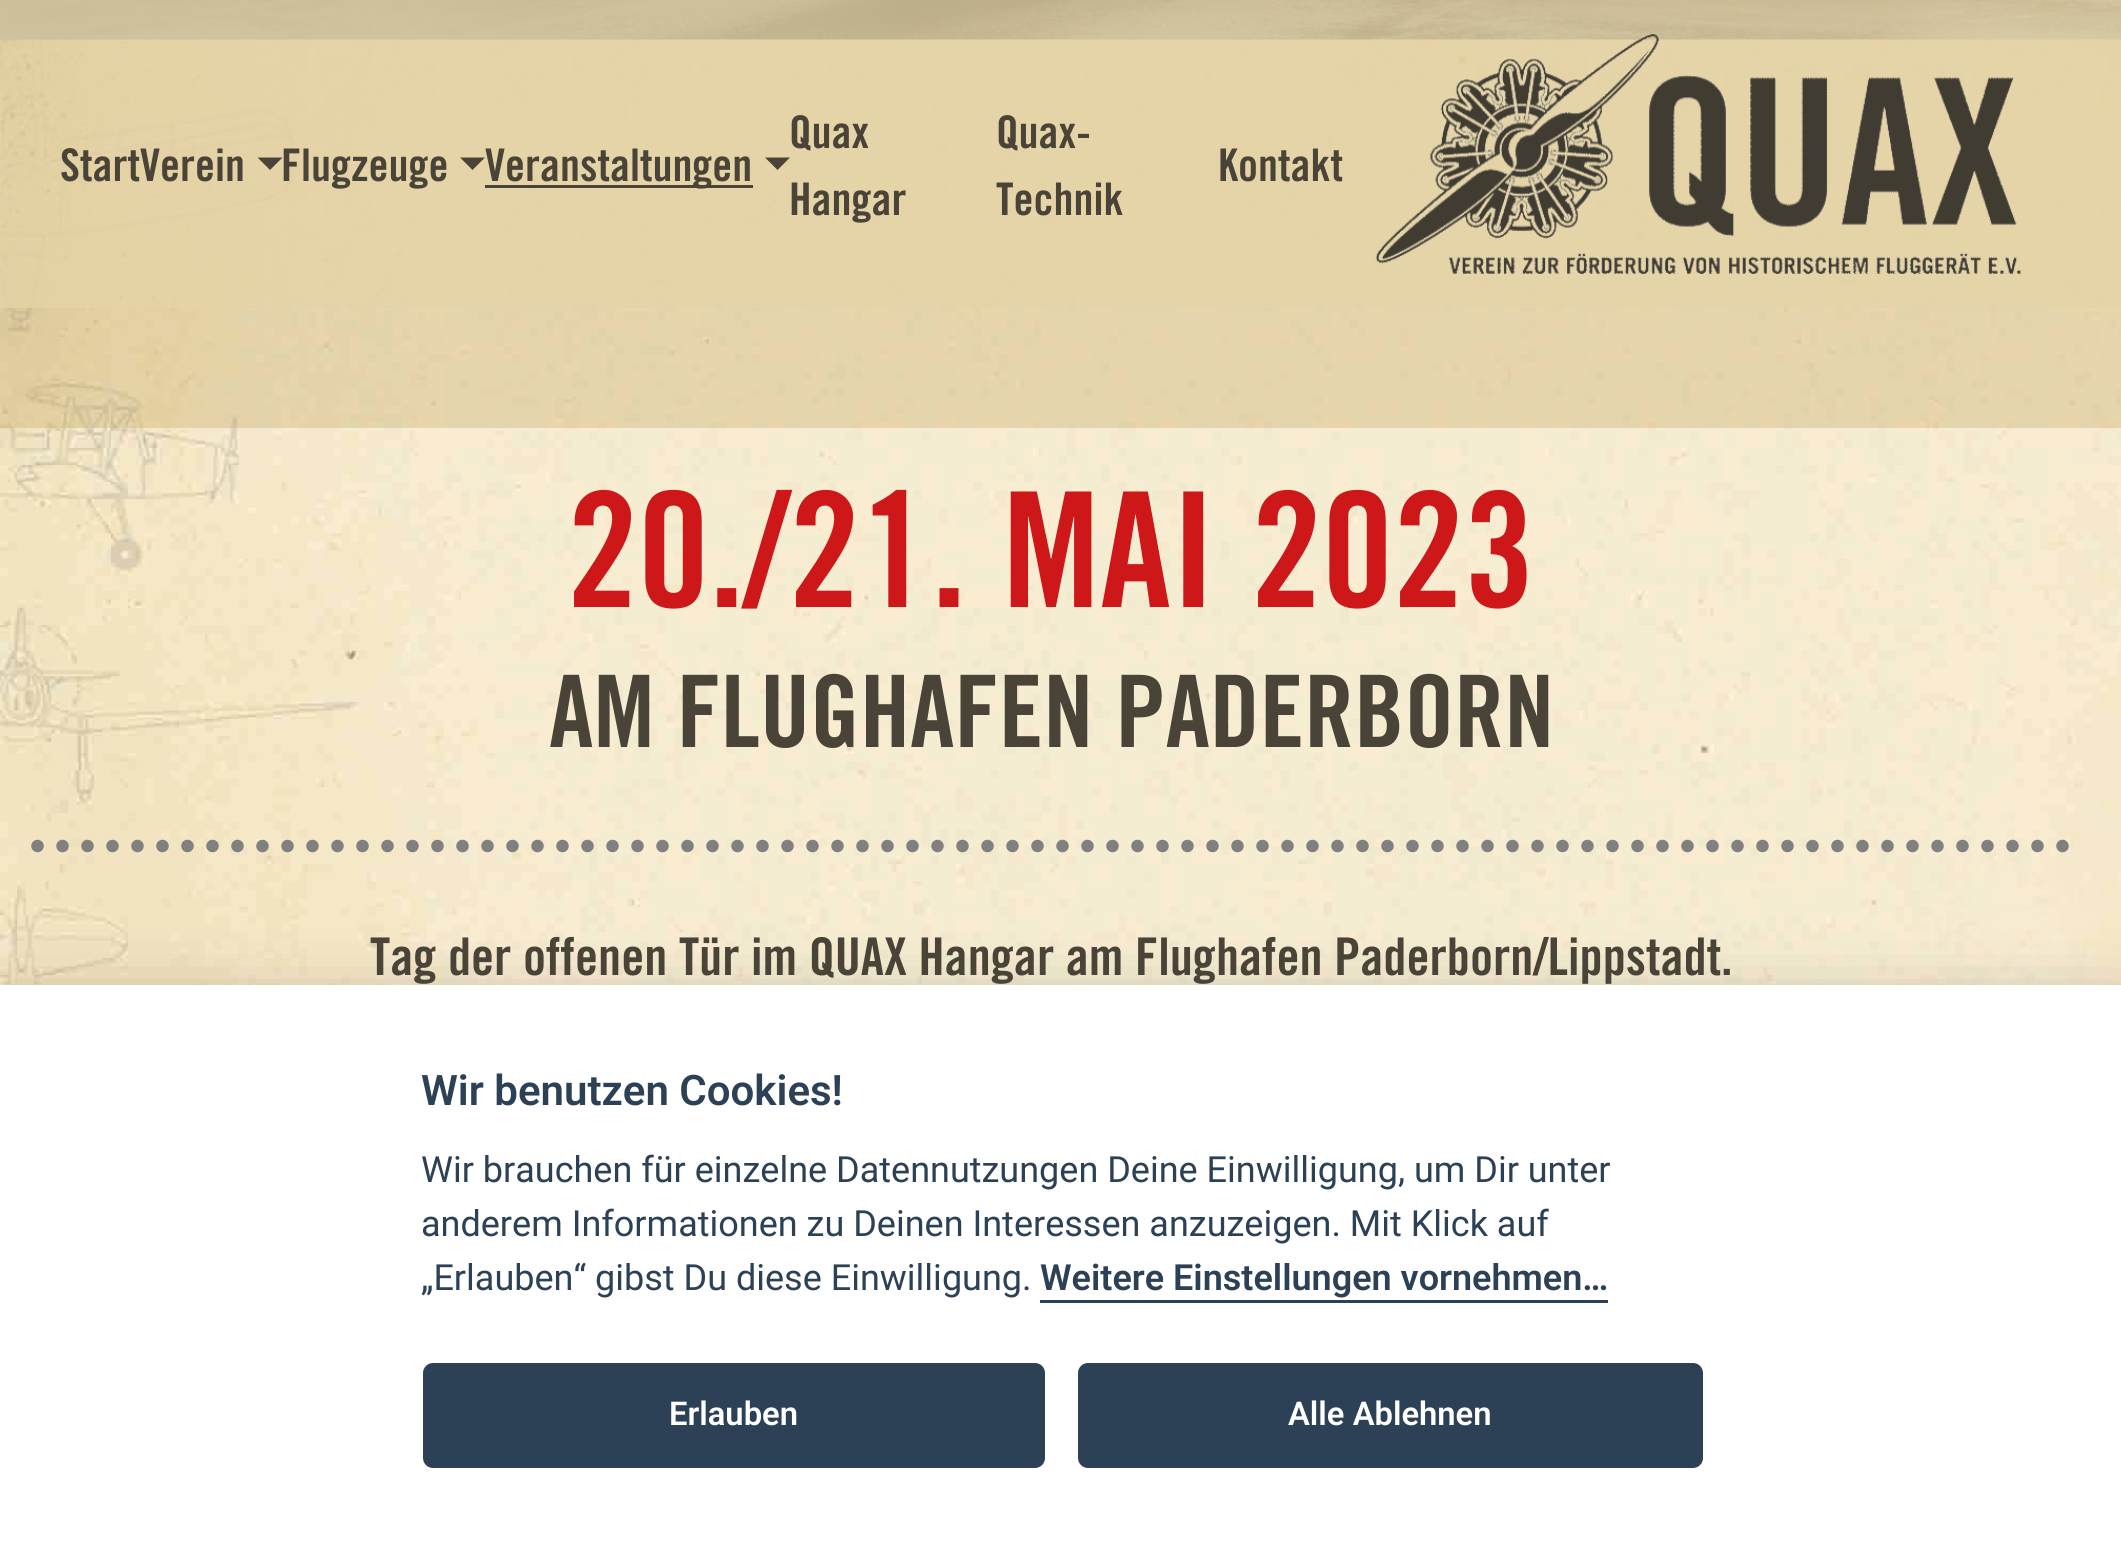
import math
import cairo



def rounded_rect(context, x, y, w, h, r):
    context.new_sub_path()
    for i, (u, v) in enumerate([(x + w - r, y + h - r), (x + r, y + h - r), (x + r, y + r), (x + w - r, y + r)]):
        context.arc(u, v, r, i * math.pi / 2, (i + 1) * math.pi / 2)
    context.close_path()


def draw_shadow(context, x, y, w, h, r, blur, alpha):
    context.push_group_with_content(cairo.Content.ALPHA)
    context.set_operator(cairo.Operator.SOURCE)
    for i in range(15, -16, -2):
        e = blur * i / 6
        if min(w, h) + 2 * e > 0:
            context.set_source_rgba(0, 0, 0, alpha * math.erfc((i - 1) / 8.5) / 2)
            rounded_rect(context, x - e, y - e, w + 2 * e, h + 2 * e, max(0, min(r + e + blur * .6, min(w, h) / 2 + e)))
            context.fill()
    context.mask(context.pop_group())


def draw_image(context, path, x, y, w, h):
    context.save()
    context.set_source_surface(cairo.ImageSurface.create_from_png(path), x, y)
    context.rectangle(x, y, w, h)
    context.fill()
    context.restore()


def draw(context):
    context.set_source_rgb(1, 1, 1)
    context.paint()
    draw_image(context, "images/1.png", 0, 39, 2121, 946)
    context.set_source_rgba(190 / 255, 159 / 255, 86 / 255, 0.3)
    context.rectangle(0, 39, 2121, 1)
    context.fill()
    draw_image(context, "images/3.png", 0, 0, 2121, 40)
    context.rectangle(0, 40, 2121, 388)
    context.fill()
    context.set_source_rgba(229 / 255, 211 / 255, 166 / 255, 0.8)
    context.rectangle(0, 0, 2121, 308)
    context.fill()
    context.set_source_rgb(74 / 255, 68 / 255, 56 / 255)
    context.new_path()
    context.move_to(257.5, 157.5)
    context.line_to(282.5, 157.5)
    context.line_to(270, 170)
    context.close_path()
    context.fill()
    context.new_path()
    context.move_to(460, 157.5)
    context.line_to(485, 157.5)
    context.line_to(472.5, 170)
    context.close_path()
    context.fill()
    context.rectangle(485, 185, 268, 3)
    context.fill()
    context.new_path()
    context.move_to(765, 157.5)
    context.line_to(790, 157.5)
    context.line_to(777.5, 170)
    context.close_path()
    context.fill()
    draw_image(context, "images/2.png", 1375, 34, 646, 240)
    context.new_path()
    context.move_to(37.5, 846)
    context.line_to(2085, 846)
    context.set_source_rgb(128 / 255, 128 / 255, 128 / 255)
    context.set_line_width(12.5)
    context.set_line_cap(cairo.LineCap.ROUND)
    context.set_dash([0, 25])
    context.stroke()
    context.set_source_rgb(2 / 255, 2 / 255, 3 / 255)
    draw_shadow(context, 0, 1010, 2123, 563, 0, 37.5, 0.28)
    context.set_source_rgb(1, 1, 1)
    context.rectangle(0, 985, 2121, 561)
    context.fill()
    context.set_source_rgb(45 / 255, 65 / 255, 86 / 255)
    context.rectangle(1040, 1300, 568, 3)
    context.fill()
    rounded_rect(context, 423, 1363, 622, 105, 10)
    context.fill()
    rounded_rect(context, 1078, 1363, 625, 105, 10)
    context.fill()
    context.select_font_face("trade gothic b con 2", cairo.FontSlant.NORMAL, cairo.FontWeight.BOLD)
    context.set_font_size(45)
    context.set_source_rgb(74 / 255, 68 / 255, 56 / 255)
    context.move_to(60, 181)
    context.show_text("StartVerein")
    context.move_to(281, 181)
    context.show_text("Flugzeuge")
    context.move_to(485, 181)
    context.show_text("Veranstaltungen")
    context.move_to(789, 148)
    context.show_text("Quax")
    context.move_to(789, 215)
    context.show_text("Hangar")
    context.move_to(996, 148)
    context.show_text("Quax-")
    context.move_to(996, 215)
    context.show_text("Technik")
    context.move_to(1218, 181)
    context.show_text("Kontakt")
    context.set_font_size(160)
    context.set_source_rgb(205 / 255, 23 / 255, 25 / 255)
    context.move_to(567, 607)
    context.show_text("20./21. MAI 2023")
    context.set_font_size(100)
    context.set_source_rgb(74 / 255, 68 / 255, 56 / 255)
    context.move_to(549, 747)
    context.show_text("AM FLUGHAFEN PADERBORN")
    context.set_font_size(52)
    context.move_to(370, 975)
    context.show_text("Tag der offenen Tür im QUAX Hangar am Flughafen Paderborn/Lippstadt.")
    context.select_font_face("Roboto SemiBold")
    context.set_font_size(42)
    context.set_source_rgb(45 / 255, 65 / 255, 86 / 255)
    context.move_to(421, 1105)
    context.show_text("Wir benutzen Cookies!")
    context.select_font_face("Roboto")
    context.set_font_size(36)
    context.move_to(421, 1182)
    context.show_text("Wir brauchen für einzelne Datennutzungen Deine Einwilligung, um Dir unter")
    context.move_to(421, 1236)
    context.show_text("anderem Informationen zu Deinen Interessen anzuzeigen. Mit Klick auf")
    context.move_to(421, 1290)
    context.show_text("„Erlauben“ gibst Du diese Einwilligung.")
    context.select_font_face("Roboto SemiBold")
    context.move_to(1040, 1290)
    context.show_text("Weitere Einstellungen vornehmen…")
    context.set_font_size(32.75)
    context.set_source_rgb(1, 1, 1)
    context.move_to(669, 1425)
    context.show_text("Erlauben")
    context.move_to(1288, 1425)
    context.show_text("Alle Ablehnen")


surface = cairo.ImageSurface(cairo.Format.RGB24, 2121, 1546)
context = cairo.Context(surface)
options = cairo.FontOptions()
options.set_hint_metrics(cairo.HintMetrics.OFF)
options.set_hint_style(cairo.HintStyle.NONE)
context.set_font_options(options)
context.set_miter_limit(4)
draw(context)
surface.write_to_png("out.png")
